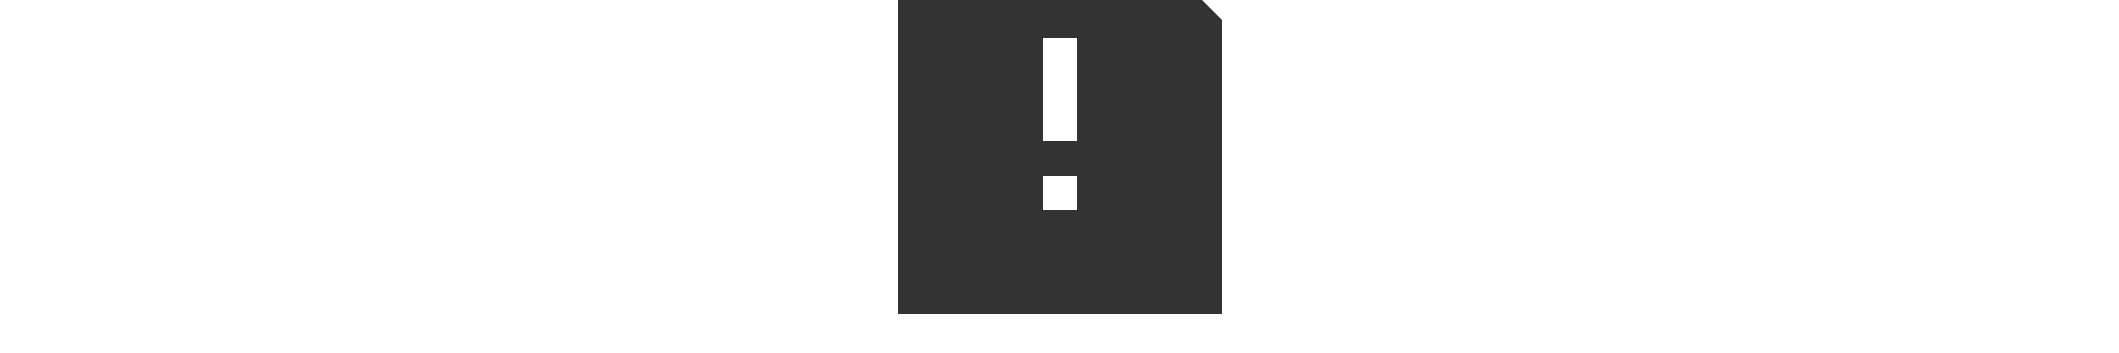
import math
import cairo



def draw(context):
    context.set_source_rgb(1, 1, 1)
    context.paint()
    context.set_source_rgb(51 / 255, 51 / 255, 51 / 255)
    context.set_fill_rule(cairo.FillRule.EVEN_ODD)
    context.new_path()
    context.move_to(898, -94)
    context.line_to(1108, -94)
    context.line_to(1222, 20)
    context.line_to(1222, 314)
    context.line_to(898, 314)
    context.close_path()
    context.move_to(1043, 38)
    context.line_to(1077, 38)
    context.line_to(1077, 141)
    context.line_to(1043, 141)
    context.close_path()
    context.move_to(1043, 176)
    context.line_to(1077, 176)
    context.line_to(1077, 210)
    context.line_to(1043, 210)
    context.close_path()
    context.fill()


surface = cairo.ImageSurface(cairo.Format.RGB24, 2119, 353)
context = cairo.Context(surface)
options = cairo.FontOptions()
options.set_hint_metrics(cairo.HintMetrics.OFF)
options.set_hint_style(cairo.HintStyle.NONE)
context.set_font_options(options)
context.set_miter_limit(4)
draw(context)
surface.write_to_png("out.png")
